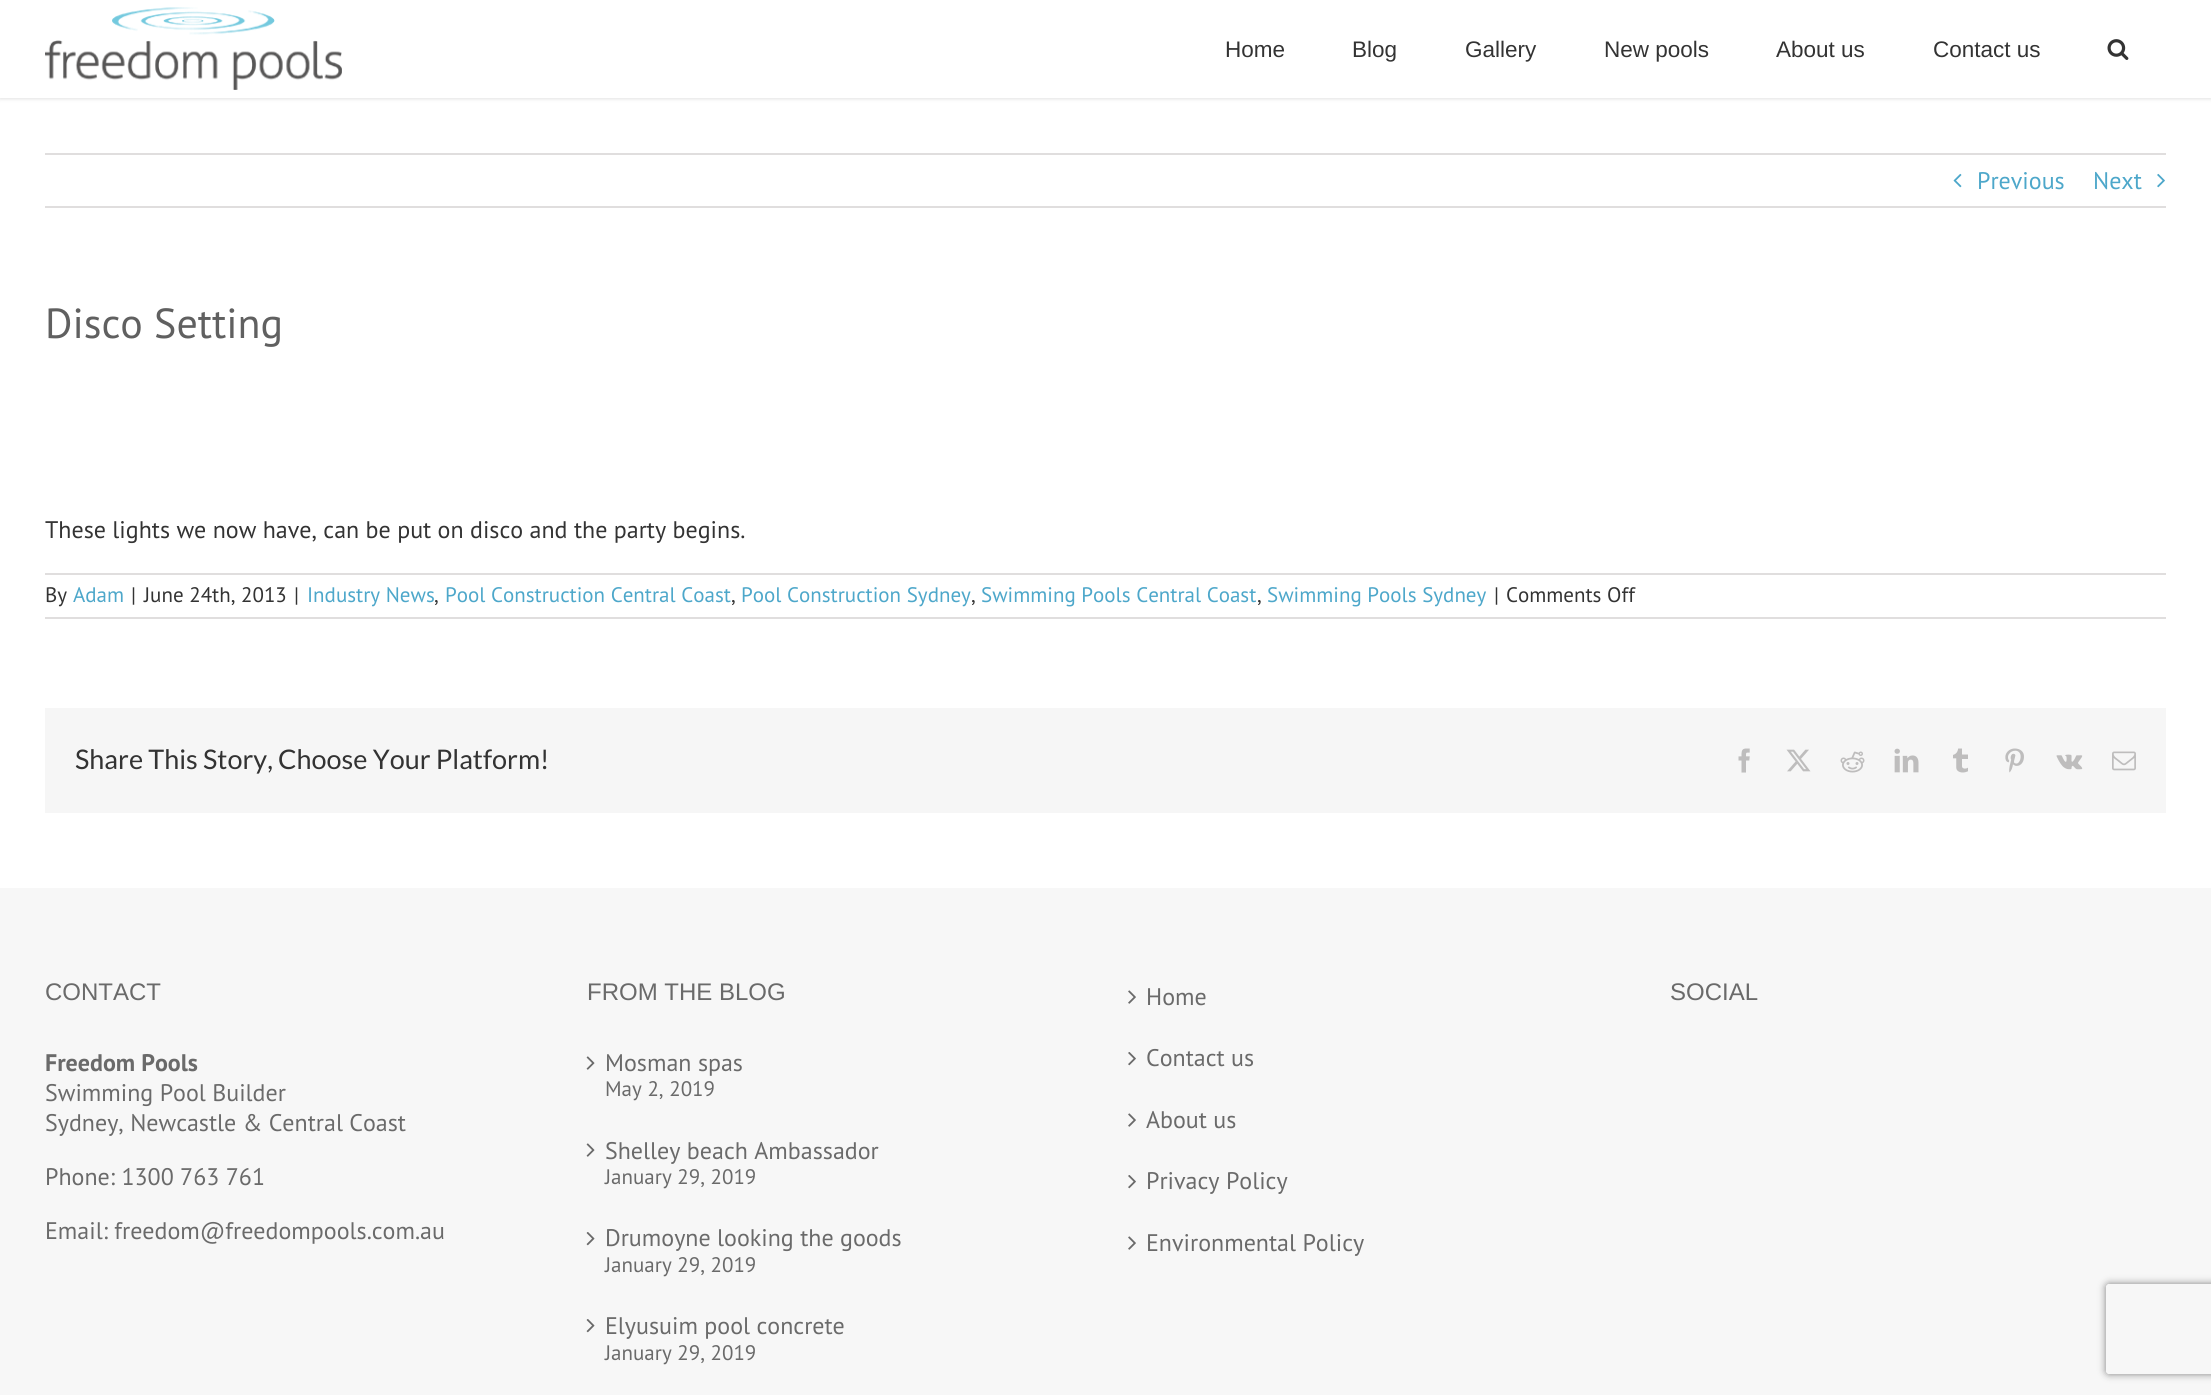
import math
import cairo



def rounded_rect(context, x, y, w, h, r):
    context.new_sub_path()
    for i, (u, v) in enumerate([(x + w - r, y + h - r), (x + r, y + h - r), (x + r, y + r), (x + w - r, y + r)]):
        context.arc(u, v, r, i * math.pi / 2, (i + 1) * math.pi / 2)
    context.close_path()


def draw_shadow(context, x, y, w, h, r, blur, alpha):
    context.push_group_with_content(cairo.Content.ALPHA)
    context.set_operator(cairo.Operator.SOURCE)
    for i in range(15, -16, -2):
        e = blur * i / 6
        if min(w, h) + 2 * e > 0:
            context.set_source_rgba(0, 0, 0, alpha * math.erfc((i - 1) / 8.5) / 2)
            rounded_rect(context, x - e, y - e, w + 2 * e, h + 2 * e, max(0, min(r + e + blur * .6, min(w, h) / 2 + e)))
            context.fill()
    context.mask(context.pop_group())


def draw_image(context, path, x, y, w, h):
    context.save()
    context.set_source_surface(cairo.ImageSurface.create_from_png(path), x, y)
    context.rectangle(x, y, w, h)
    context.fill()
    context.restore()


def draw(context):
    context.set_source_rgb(247 / 255, 247 / 255, 247 / 255)
    context.paint()
    context.set_source_rgb(1, 1, 1)
    context.rectangle(0, 78, 2211, 810)
    context.fill()
    context.save()
    context.set_fill_rule(cairo.FillRule.EVEN_ODD)
    context.new_path()
    context.move_to(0, 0)
    context.line_to(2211, 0)
    context.line_to(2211, 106)
    context.line_to(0, 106)
    context.close_path()
    context.move_to(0, 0)
    context.line_to(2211, 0)
    context.line_to(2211, 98)
    context.line_to(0, 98)
    context.close_path()
    context.clip()
    context.set_source_rgb(0, 0, 0)
    draw_shadow(context, 0, 2, 2211, 97, 0, 2, 0.12)
    context.restore()
    context.set_source_rgba(1, 1, 1, 0.97)
    context.rectangle(0, 0, 2211, 98)
    context.fill()
    draw_image(context, "images/1.png", 45, 7, 297, 83)
    draw_image(context, "images/2.png", 2107, 39, 22, 21)
    context.set_source_rgb(224 / 255, 222 / 255, 222 / 255)
    context.rectangle(45, 153, 2121, 2)
    context.fill()
    context.rectangle(45, 206, 2121, 2)
    context.fill()
    draw_image(context, "images/3.png", 1953, 173, 9, 15)
    draw_image(context, "images/4.png", 2157, 173, 8, 15)
    context.rectangle(45, 573, 2121, 2)
    context.fill()
    context.rectangle(45, 617, 2121, 2)
    context.fill()
    context.set_source_rgb(246 / 255, 246 / 255, 246 / 255)
    context.rectangle(45, 708, 2121, 105)
    context.fill()
    draw_image(context, "images/5.png", 1738, 748, 12, 25)
    draw_image(context, "images/6.png", 1786, 749, 25, 23)
    draw_image(context, "images/7.png", 1840, 751, 25, 22)
    draw_image(context, "images/8.png", 1894, 748, 25, 25)
    draw_image(context, "images/9.png", 1953, 748, 15, 25)
    draw_image(context, "images/10.png", 2005, 748, 19, 25)
    draw_image(context, "images/11.png", 2056, 754, 27, 16)
    draw_image(context, "images/12.png", 2112, 751, 24, 20)
    draw_image(context, "images/13.png", 586, 1056, 9, 14)
    draw_image(context, "images/13.png", 586, 1143, 9, 14)
    draw_image(context, "images/14.png", 586, 1232, 9, 14)
    draw_image(context, "images/14.png", 586, 1319, 9, 14)
    draw_image(context, "images/15.png", 1128, 990, 8, 14)
    draw_image(context, "images/16.png", 1128, 1052, 8, 14)
    draw_image(context, "images/15.png", 1128, 1113, 8, 14)
    draw_image(context, "images/16.png", 1128, 1175, 8, 14)
    draw_image(context, "images/15.png", 1128, 1236, 8, 14)
    context.save()
    context.set_fill_rule(cairo.FillRule.EVEN_ODD)
    context.new_path()
    context.move_to(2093, 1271)
    context.line_to(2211, 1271)
    context.line_to(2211, 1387)
    context.line_to(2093, 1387)
    context.close_path()
    context.move_to(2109, 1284)
    context.line_to(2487, 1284)
    context.curve_to(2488.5, 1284, 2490, 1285.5, 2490, 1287)
    context.line_to(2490, 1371)
    context.curve_to(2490, 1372.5, 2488.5, 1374, 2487, 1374)
    context.line_to(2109, 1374)
    context.curve_to(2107.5, 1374, 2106, 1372.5, 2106, 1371)
    context.line_to(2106, 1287)
    context.curve_to(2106, 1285.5, 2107.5, 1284, 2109, 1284)
    context.close_path()
    context.clip()
    context.set_source_rgb(128 / 255, 128 / 255, 128 / 255)
    draw_shadow(context, 2106, 1284, 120, 90, 3, 4, 1)
    context.restore()
    context.select_font_face("Liberation Sans")
    context.set_font_size(22.5)
    context.set_source_rgb(51 / 255, 51 / 255, 51 / 255)
    context.move_to(1225, 57)
    context.show_text("Home")
    context.move_to(1352, 57)
    context.show_text("Blog")
    context.move_to(1465, 57)
    context.show_text("Gallery")
    context.move_to(1604, 57)
    context.show_text("New pools")
    context.move_to(1776, 57)
    context.show_text("About us")
    context.move_to(1933, 57)
    context.show_text("Contact us")
    context.select_font_face("PT Sans")
    context.set_font_size(24)
    context.set_source_rgb(77 / 255, 167 / 255, 202 / 255)
    context.move_to(1977, 189)
    context.show_text("Previous")
    context.move_to(2093, 189)
    context.show_text("Next")
    context.set_font_size(42)
    context.set_source_rgb(96 / 255, 96 / 255, 96 / 255)
    context.move_to(45, 338)
    context.show_text("Disco Setting")
    context.set_font_size(24)
    context.set_source_rgb(51 / 255, 51 / 255, 51 / 255)
    context.move_to(45, 538)
    context.show_text("These lights we now have, can be put on disco and the party begins.")
    context.set_font_size(21)
    context.move_to(45, 602)
    context.show_text("By")
    context.set_source_rgb(77 / 255, 167 / 255, 202 / 255)
    context.move_to(73, 602)
    context.show_text("Adam")
    context.set_source_rgb(51 / 255, 51 / 255, 51 / 255)
    context.move_to(131, 602)
    context.show_text("|")
    context.move_to(144, 602)
    context.show_text("June 24th, 2013")
    context.move_to(294, 602)
    context.show_text("|")
    context.set_source_rgb(77 / 255, 167 / 255, 202 / 255)
    context.move_to(307, 602)
    context.show_text("Industry News")
    context.set_source_rgb(51 / 255, 51 / 255, 51 / 255)
    context.move_to(434, 602)
    context.show_text(",")
    context.set_source_rgb(77 / 255, 167 / 255, 202 / 255)
    context.move_to(445, 602)
    context.show_text("Pool Construction Central Coast")
    context.set_source_rgb(51 / 255, 51 / 255, 51 / 255)
    context.move_to(731, 602)
    context.show_text(",")
    context.set_source_rgb(77 / 255, 167 / 255, 202 / 255)
    context.move_to(741, 602)
    context.show_text("Pool Construction Sydney")
    context.set_source_rgb(51 / 255, 51 / 255, 51 / 255)
    context.move_to(971, 602)
    context.show_text(",")
    context.set_source_rgb(77 / 255, 167 / 255, 202 / 255)
    context.move_to(981, 602)
    context.show_text("Swimming Pools Central Coast")
    context.set_source_rgb(51 / 255, 51 / 255, 51 / 255)
    context.move_to(1257, 602)
    context.show_text(",")
    context.set_source_rgb(77 / 255, 167 / 255, 202 / 255)
    context.move_to(1267, 602)
    context.show_text("Swimming Pools Sydney")
    context.set_source_rgb(51 / 255, 51 / 255, 51 / 255)
    context.move_to(1494, 602)
    context.show_text("|")
    context.move_to(1506, 602)
    context.show_text("Comments Off")
    context.select_font_face("Lato")
    context.set_font_size(27)
    context.move_to(75, 769)
    context.show_text("Share This Story, Choose Your Platform!")
    context.select_font_face("Liberation Sans")
    context.set_font_size(24)
    context.set_source_rgb(106 / 255, 106 / 255, 106 / 255)
    context.move_to(45, 1000)
    context.show_text("CONTACT")
    context.select_font_face("PT Sans", cairo.FontSlant.NORMAL, cairo.FontWeight.BOLD)
    context.move_to(45, 1071)
    context.show_text("Freedom Pools")
    context.select_font_face("PT Sans")
    context.move_to(45, 1101)
    context.show_text("Swimming Pool Builder")
    context.move_to(45, 1131)
    context.show_text("Sydney, Newcastle & Central Coast")
    context.move_to(45, 1185)
    context.show_text("Phone: 1300 763 761")
    context.move_to(45, 1239)
    context.show_text("Email: freedom@freedompools.com.au")
    context.select_font_face("Liberation Sans")
    context.move_to(587, 1000)
    context.show_text("FROM THE BLOG")
    context.select_font_face("PT Sans")
    context.move_to(605, 1071)
    context.show_text("Mosman spas")
    context.set_font_size(21)
    context.move_to(605, 1096)
    context.show_text("May 2, 2019")
    context.set_font_size(24)
    context.move_to(605, 1159)
    context.show_text("Shelley beach Ambassador")
    context.set_font_size(21)
    context.move_to(605, 1184)
    context.show_text("January 29, 2019")
    context.set_font_size(24)
    context.move_to(605, 1246)
    context.show_text("Drumoyne looking the goods")
    context.set_font_size(21)
    context.move_to(605, 1272)
    context.show_text("January 29, 2019")
    context.set_font_size(24)
    context.move_to(605, 1334)
    context.show_text("Elyusuim pool concrete")
    context.set_font_size(21)
    context.move_to(605, 1360)
    context.show_text("January 29, 2019")
    context.set_font_size(24)
    context.move_to(1146, 1005)
    context.show_text("Home")
    context.move_to(1146, 1066)
    context.show_text("Contact us")
    context.move_to(1146, 1128)
    context.show_text("About us")
    context.move_to(1146, 1189)
    context.show_text("Privacy Policy")
    context.move_to(1146, 1251)
    context.show_text("Environmental Policy")
    context.select_font_face("Liberation Sans")
    context.move_to(1670, 1000)
    context.show_text("SOCIAL")


surface = cairo.ImageSurface(cairo.Format.RGB24, 2211, 1395)
context = cairo.Context(surface)
options = cairo.FontOptions()
options.set_hint_metrics(cairo.HintMetrics.OFF)
options.set_hint_style(cairo.HintStyle.NONE)
context.set_font_options(options)
context.set_miter_limit(4)
draw(context)
surface.write_to_png("out.png")
